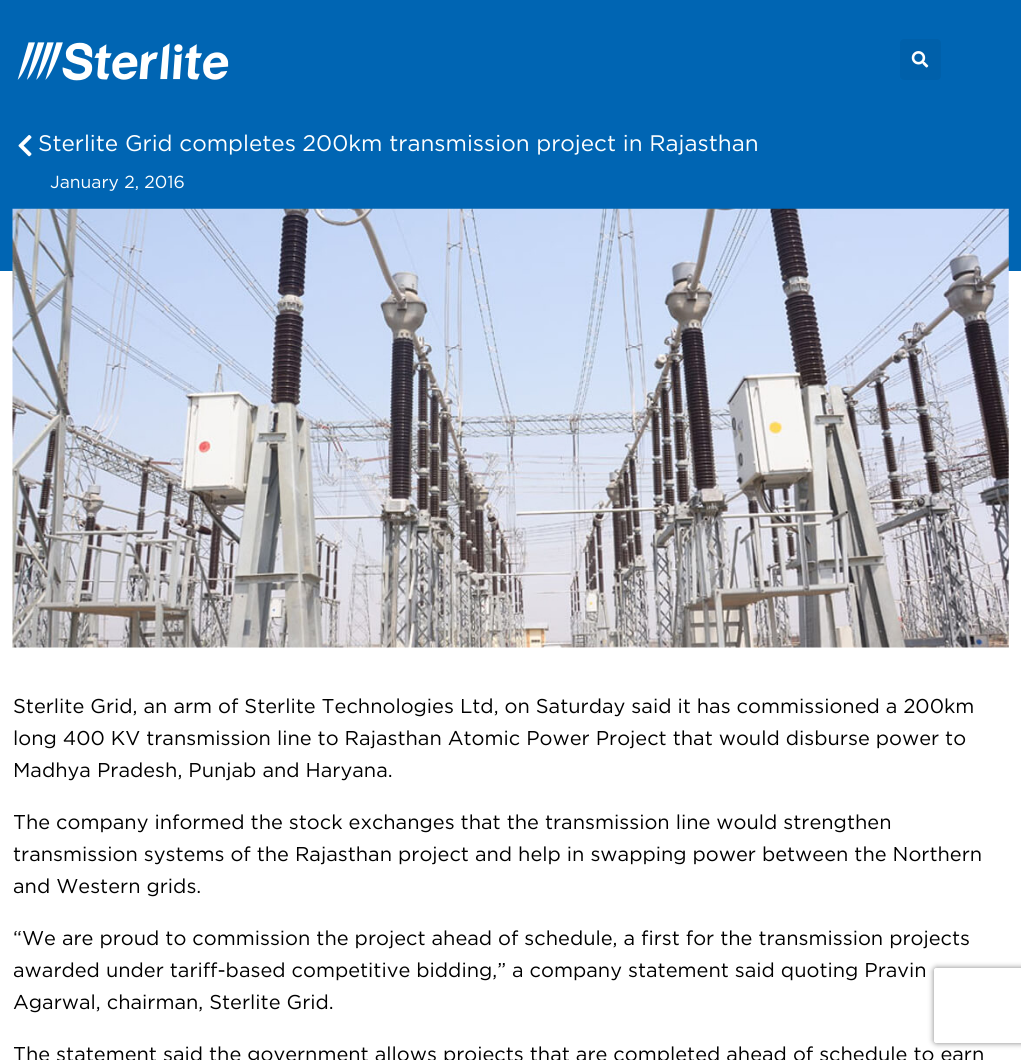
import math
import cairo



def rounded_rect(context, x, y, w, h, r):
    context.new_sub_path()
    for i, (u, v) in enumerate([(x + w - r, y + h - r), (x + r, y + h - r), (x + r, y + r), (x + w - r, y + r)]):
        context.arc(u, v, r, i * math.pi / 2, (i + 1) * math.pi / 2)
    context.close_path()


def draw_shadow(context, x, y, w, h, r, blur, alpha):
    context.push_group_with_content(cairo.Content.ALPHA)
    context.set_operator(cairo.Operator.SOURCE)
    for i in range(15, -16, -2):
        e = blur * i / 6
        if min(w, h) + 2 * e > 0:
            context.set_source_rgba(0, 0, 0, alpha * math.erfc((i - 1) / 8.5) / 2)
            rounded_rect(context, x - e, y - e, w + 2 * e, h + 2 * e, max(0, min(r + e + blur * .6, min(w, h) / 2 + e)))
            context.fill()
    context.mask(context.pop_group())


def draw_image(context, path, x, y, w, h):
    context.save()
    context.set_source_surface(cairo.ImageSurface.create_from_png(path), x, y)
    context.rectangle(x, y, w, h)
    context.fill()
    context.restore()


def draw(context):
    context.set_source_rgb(1, 1, 1)
    context.paint()
    context.set_source_rgb(0, 101 / 255, 179 / 255)
    context.rectangle(0, 0, 1021, 271)
    context.fill()
    draw_image(context, "images/1.png", 17, 42, 212, 39)
    context.set_source_rgb(0, 96 / 255, 170 / 255)
    rounded_rect(context, 900, 39, 41, 41, 4)
    context.fill()
    draw_image(context, "images/2.png", 911, 51, 18, 17)
    draw_image(context, "images/3.png", 18, 135, 14, 22)
    draw_image(context, "images/4.png", 12, 208, 997, 440)
    context.save()
    context.set_fill_rule(cairo.FillRule.EVEN_ODD)
    context.new_path()
    context.move_to(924, 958)
    context.line_to(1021, 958)
    context.line_to(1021, 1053)
    context.line_to(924, 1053)
    context.close_path()
    context.move_to(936.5, 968)
    context.line_to(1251.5, 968)
    context.curve_to(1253, 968, 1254, 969, 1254, 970.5)
    context.line_to(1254, 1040.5)
    context.curve_to(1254, 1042, 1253, 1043, 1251.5, 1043)
    context.line_to(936.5, 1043)
    context.curve_to(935, 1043, 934, 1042, 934, 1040.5)
    context.line_to(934, 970.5)
    context.curve_to(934, 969, 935, 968, 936.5, 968)
    context.close_path()
    context.clip()
    context.set_source_rgb(128 / 255, 128 / 255, 128 / 255)
    draw_shadow(context, 934, 968, 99, 75, 2.5, 3, 1)
    context.restore()
    context.select_font_face("Gotham")
    context.set_font_size(22.5)
    context.set_source_rgb(1, 1, 1)
    context.move_to(38, 151)
    context.show_text("Sterlite Grid completes 200km transmission project in Rajasthan")
    context.set_font_size(17.5)
    context.move_to(50, 188)
    context.show_text("January 2, 2016")
    context.set_font_size(20)
    context.set_source_rgb(0, 0, 0)
    context.move_to(13, 713)
    context.show_text("Sterlite Grid, an arm of Sterlite Technologies Ltd, on Saturday said it has commissioned a 200km")
    context.move_to(13, 745)
    context.show_text("long 400 KV transmission line to Rajasthan Atomic Power Project that would disburse power to")
    context.move_to(13, 777)
    context.show_text("Madhya Pradesh, Punjab and Haryana.")
    context.move_to(13, 829)
    context.show_text("The company informed the stock exchanges that the transmission line would strengthen")
    context.move_to(13, 861)
    context.show_text("transmission systems of the Rajasthan project and help in swapping power between the Northern")
    context.move_to(13, 893)
    context.show_text("and Western grids.")
    context.move_to(13, 945)
    context.show_text("“We are proud to commission the project ahead of schedule, a first for the transmission projects")
    context.move_to(13, 977)
    context.show_text("awarded under tariff-based competitive bidding,” a company statement said quoting Pravin")
    context.move_to(13, 1009)
    context.show_text("Agarwal, chairman, Sterlite Grid.")
    context.move_to(13, 1061)
    context.show_text("The statement said the government allows projects that are completed ahead of schedule to earn")


surface = cairo.ImageSurface(cairo.Format.RGB24, 1021, 1060)
context = cairo.Context(surface)
options = cairo.FontOptions()
options.set_hint_metrics(cairo.HintMetrics.OFF)
options.set_hint_style(cairo.HintStyle.NONE)
context.set_font_options(options)
context.set_miter_limit(4)
draw(context)
surface.write_to_png("out.png")
